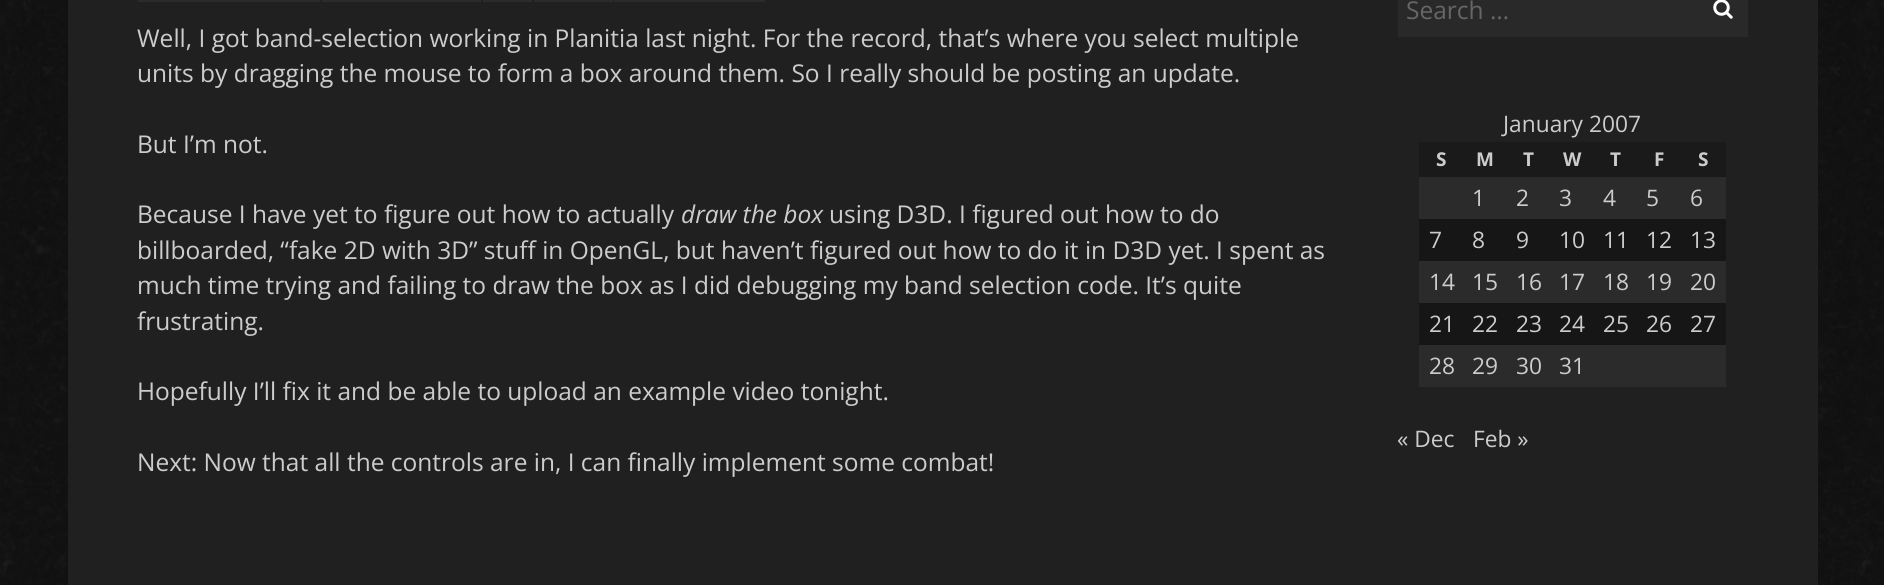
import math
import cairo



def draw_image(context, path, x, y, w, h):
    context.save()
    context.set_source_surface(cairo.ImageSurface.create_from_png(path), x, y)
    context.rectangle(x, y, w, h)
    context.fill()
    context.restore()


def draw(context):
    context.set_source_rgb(1, 1, 1)
    context.paint()
    draw_image(context, "images/1.png", 0, 0, 1884, 585)
    context.set_source_rgb(32 / 255, 32 / 255, 32 / 255)
    context.rectangle(68, 0, 1750, 585)
    context.fill()
    context.set_source_rgb(43 / 255, 43 / 255, 43 / 255)
    context.rectangle(138, 0, 182, 2)
    context.fill()
    context.rectangle(322, 0, 159, 2)
    context.fill()
    context.rectangle(483, 0, 49, 2)
    context.fill()
    context.rectangle(534, 0, 79, 2)
    context.fill()
    context.rectangle(614, 0, 151, 2)
    context.fill()
    context.set_source_rgb(41 / 255, 41 / 255, 41 / 255)
    context.rectangle(1398, 0, 350, 37)
    context.fill()
    draw_image(context, "images/2.png", 1713, 0, 20, 19)
    context.set_source_rgb(26 / 255, 26 / 255, 26 / 255)
    context.rectangle(1419, 142, 307, 35)
    context.fill()
    context.set_source_rgb(43 / 255, 43 / 255, 43 / 255)
    context.rectangle(1419, 177, 307, 42)
    context.fill()
    context.set_source_rgb(22 / 255, 22 / 255, 22 / 255)
    context.rectangle(1419, 219, 307, 42)
    context.fill()
    context.set_source_rgb(43 / 255, 43 / 255, 43 / 255)
    context.rectangle(1419, 261, 307, 42)
    context.fill()
    context.set_source_rgb(22 / 255, 22 / 255, 22 / 255)
    context.rectangle(1419, 303, 307, 42)
    context.fill()
    context.set_source_rgb(43 / 255, 43 / 255, 43 / 255)
    context.rectangle(1419, 345, 307, 42)
    context.fill()
    context.select_font_face("Open Sans")
    context.set_font_size(24.5)
    context.set_source_rgb(204 / 255, 204 / 255, 204 / 255)
    context.move_to(137, 47)
    context.show_text("Well, I got band-selection working in Planitia last night. For the record, that’s where you select multiple")
    context.move_to(137, 82)
    context.show_text("units by dragging the mouse to form a box around them. So I really should be posting an update.")
    context.move_to(137, 153)
    context.show_text("But I’m not.")
    context.move_to(137, 223)
    context.show_text("Because I have yet to figure out how to actually")
    context.select_font_face("Open Sans", cairo.FontSlant.ITALIC)
    context.move_to(681, 223)
    context.show_text("draw the box")
    context.select_font_face("Open Sans")
    context.move_to(829, 223)
    context.show_text("using D3D. I figured out how to do")
    context.move_to(137, 259)
    context.show_text("billboarded, “fake 2D with 3D” stuff in OpenGL, but haven’t figured out how to do it in D3D yet. I spent as")
    context.move_to(137, 294)
    context.show_text("much time trying and failing to draw the box as I did debugging my band selection code. It’s quite")
    context.move_to(137, 330)
    context.show_text("frustrating.")
    context.move_to(137, 400)
    context.show_text("Hopefully I’ll fix it and be able to upload an example video tonight.")
    context.move_to(137, 471)
    context.show_text("Next: Now that all the controls are in, I can finally implement some combat!")
    context.set_source_rgb(102 / 255, 102 / 255, 102 / 255)
    context.move_to(1406, 19)
    context.show_text("Search …")
    context.set_font_size(22.75)
    context.set_source_rgb(204 / 255, 204 / 255, 204 / 255)
    context.move_to(1503, 132)
    context.show_text("January 2007")
    context.select_font_face("Open Sans", cairo.FontSlant.NORMAL, cairo.FontWeight.BOLD)
    context.set_font_size(19)
    context.move_to(1436, 166)
    context.show_text("S")
    context.move_to(1476, 166)
    context.show_text("M")
    context.move_to(1523, 166)
    context.show_text("T")
    context.move_to(1563, 166)
    context.show_text("W")
    context.move_to(1610, 166)
    context.show_text("T")
    context.move_to(1654, 166)
    context.show_text("F")
    context.move_to(1698, 166)
    context.show_text("S")
    context.select_font_face("Open Sans")
    context.set_font_size(22.75)
    context.move_to(1472, 206)
    context.show_text("1")
    context.move_to(1516, 206)
    context.show_text("2")
    context.move_to(1559, 206)
    context.show_text("3")
    context.move_to(1603, 206)
    context.show_text("4")
    context.move_to(1646, 206)
    context.show_text("5")
    context.move_to(1690, 206)
    context.show_text("6")
    context.move_to(1429, 248)
    context.show_text("7")
    context.move_to(1472, 248)
    context.show_text("8")
    context.move_to(1516, 248)
    context.show_text("9")
    context.move_to(1559, 248)
    context.show_text("10")
    context.move_to(1603, 248)
    context.show_text("11")
    context.move_to(1646, 248)
    context.show_text("12")
    context.move_to(1690, 248)
    context.show_text("13")
    context.move_to(1429, 290)
    context.show_text("14")
    context.move_to(1472, 290)
    context.show_text("15")
    context.move_to(1516, 290)
    context.show_text("16")
    context.move_to(1559, 290)
    context.show_text("17")
    context.move_to(1603, 290)
    context.show_text("18")
    context.move_to(1646, 290)
    context.show_text("19")
    context.move_to(1690, 290)
    context.show_text("20")
    context.move_to(1429, 332)
    context.show_text("21")
    context.move_to(1472, 332)
    context.show_text("22")
    context.move_to(1516, 332)
    context.show_text("23")
    context.move_to(1559, 332)
    context.show_text("24")
    context.move_to(1603, 332)
    context.show_text("25")
    context.move_to(1646, 332)
    context.show_text("26")
    context.move_to(1690, 332)
    context.show_text("27")
    context.move_to(1429, 374)
    context.show_text("28")
    context.move_to(1472, 374)
    context.show_text("29")
    context.move_to(1516, 374)
    context.show_text("30")
    context.move_to(1559, 374)
    context.show_text("31")
    context.move_to(1397, 447)
    context.show_text("« Dec")
    context.move_to(1473, 447)
    context.show_text("Feb »")


surface = cairo.ImageSurface(cairo.Format.RGB24, 1884, 585)
context = cairo.Context(surface)
options = cairo.FontOptions()
options.set_hint_metrics(cairo.HintMetrics.OFF)
options.set_hint_style(cairo.HintStyle.NONE)
context.set_font_options(options)
context.set_miter_limit(4)
draw(context)
surface.write_to_png("out.png")
